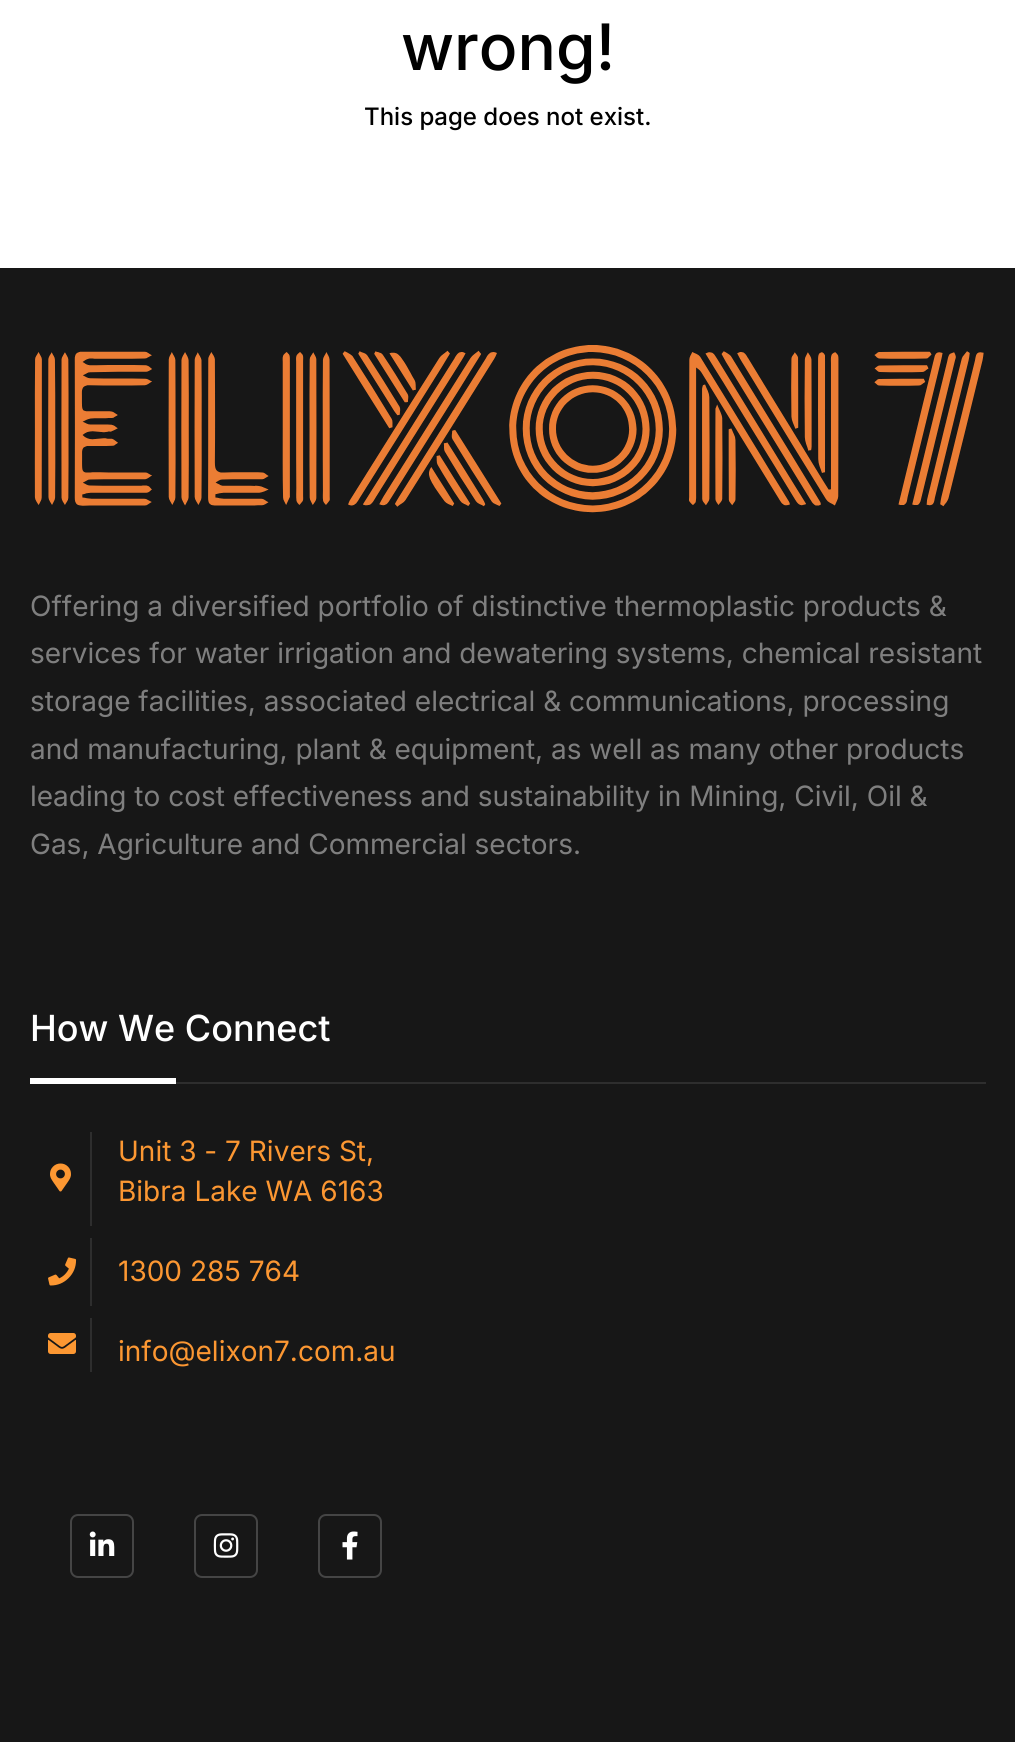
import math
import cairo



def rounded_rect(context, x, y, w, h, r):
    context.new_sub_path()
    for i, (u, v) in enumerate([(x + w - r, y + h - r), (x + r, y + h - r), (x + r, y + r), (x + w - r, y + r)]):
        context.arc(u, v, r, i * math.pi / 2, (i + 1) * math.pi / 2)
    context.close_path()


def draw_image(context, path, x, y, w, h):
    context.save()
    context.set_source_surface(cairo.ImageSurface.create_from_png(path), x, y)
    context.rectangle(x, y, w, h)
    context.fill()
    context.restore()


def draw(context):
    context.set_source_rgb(1, 1, 1)
    context.paint()
    context.set_source_rgb(23 / 255, 23 / 255, 23 / 255)
    context.rectangle(0, 268, 1015, 1474)
    context.fill()
    draw_image(context, "images/1.png", 34, 345, 950, 168)
    context.set_source_rgb(46 / 255, 46 / 255, 46 / 255)
    context.rectangle(176, 1082, 810, 2)
    context.fill()
    context.set_source_rgb(1, 1, 1)
    context.rectangle(30, 1078, 146, 6)
    context.fill()
    context.set_source_rgb(46 / 255, 46 / 255, 46 / 255)
    context.rectangle(90, 1132, 2, 94)
    context.fill()
    draw_image(context, "images/2.png", 50, 1163, 21, 29)
    draw_image(context, "images/3.png", 48, 1257, 29, 29)
    context.rectangle(90, 1238, 2, 68)
    context.fill()
    draw_image(context, "images/4.png", 48, 1333, 28, 21)
    context.rectangle(90, 1318, 2, 54)
    context.fill()
    rounded_rect(context, 71, 1515, 62, 62, 7)
    context.set_source_rgb(69 / 255, 69 / 255, 69 / 255)
    context.stroke()
    draw_image(context, "images/5.png", 89, 1531, 26, 25)
    rounded_rect(context, 195, 1515, 62, 62, 7)
    context.stroke()
    draw_image(context, "images/6.png", 213, 1533, 26, 25)
    rounded_rect(context, 319, 1515, 62, 62, 7)
    context.stroke()
    draw_image(context, "images/7.png", 342, 1531, 16, 29)
    context.select_font_face("Inter Medium")
    context.set_font_size(64)
    context.set_source_rgb(0, 0, 0)
    context.move_to(401, 70)
    context.show_text("wrong!")
    context.set_font_size(24)
    context.move_to(364, 125)
    context.show_text("This page does not exist.")
    context.select_font_face("Inter")
    context.set_font_size(28)
    context.set_source_rgb(127 / 255, 127 / 255, 127 / 255)
    context.move_to(30, 616)
    context.show_text("Offering a diversified portfolio of distinctive thermoplastic products &")
    context.move_to(30, 663)
    context.show_text("services for water irrigation and dewatering systems, chemical resistant")
    context.move_to(30, 711)
    context.show_text("storage facilities, associated electrical & communications, processing")
    context.move_to(30, 759)
    context.show_text("and manufacturing, plant & equipment, as well as many other products")
    context.move_to(30, 806)
    context.show_text("leading to cost effectiveness and sustainability in Mining, Civil, Oil &")
    context.move_to(30, 854)
    context.show_text("Gas, Agriculture and Commercial sectors.")
    context.select_font_face("Inter Medium")
    context.set_font_size(36)
    context.set_source_rgb(1, 1, 1)
    context.move_to(30, 1041)
    context.show_text("How We Connect")
    context.select_font_face("Inter")
    context.set_font_size(28)
    context.set_source_rgb(252 / 255, 151 / 255, 50 / 255)
    context.move_to(118, 1161)
    context.show_text("Unit 3 - 7 Rivers St,")
    context.move_to(118, 1201)
    context.show_text("Bibra Lake WA 6163")
    context.move_to(118, 1281)
    context.show_text("1300 285 764")
    context.move_to(118, 1361)
    context.show_text("info@elixon7.com.au")


surface = cairo.ImageSurface(cairo.Format.RGB24, 1015, 1742)
context = cairo.Context(surface)
options = cairo.FontOptions()
options.set_hint_metrics(cairo.HintMetrics.OFF)
options.set_hint_style(cairo.HintStyle.NONE)
context.set_font_options(options)
context.set_miter_limit(4)
draw(context)
surface.write_to_png("out.png")
